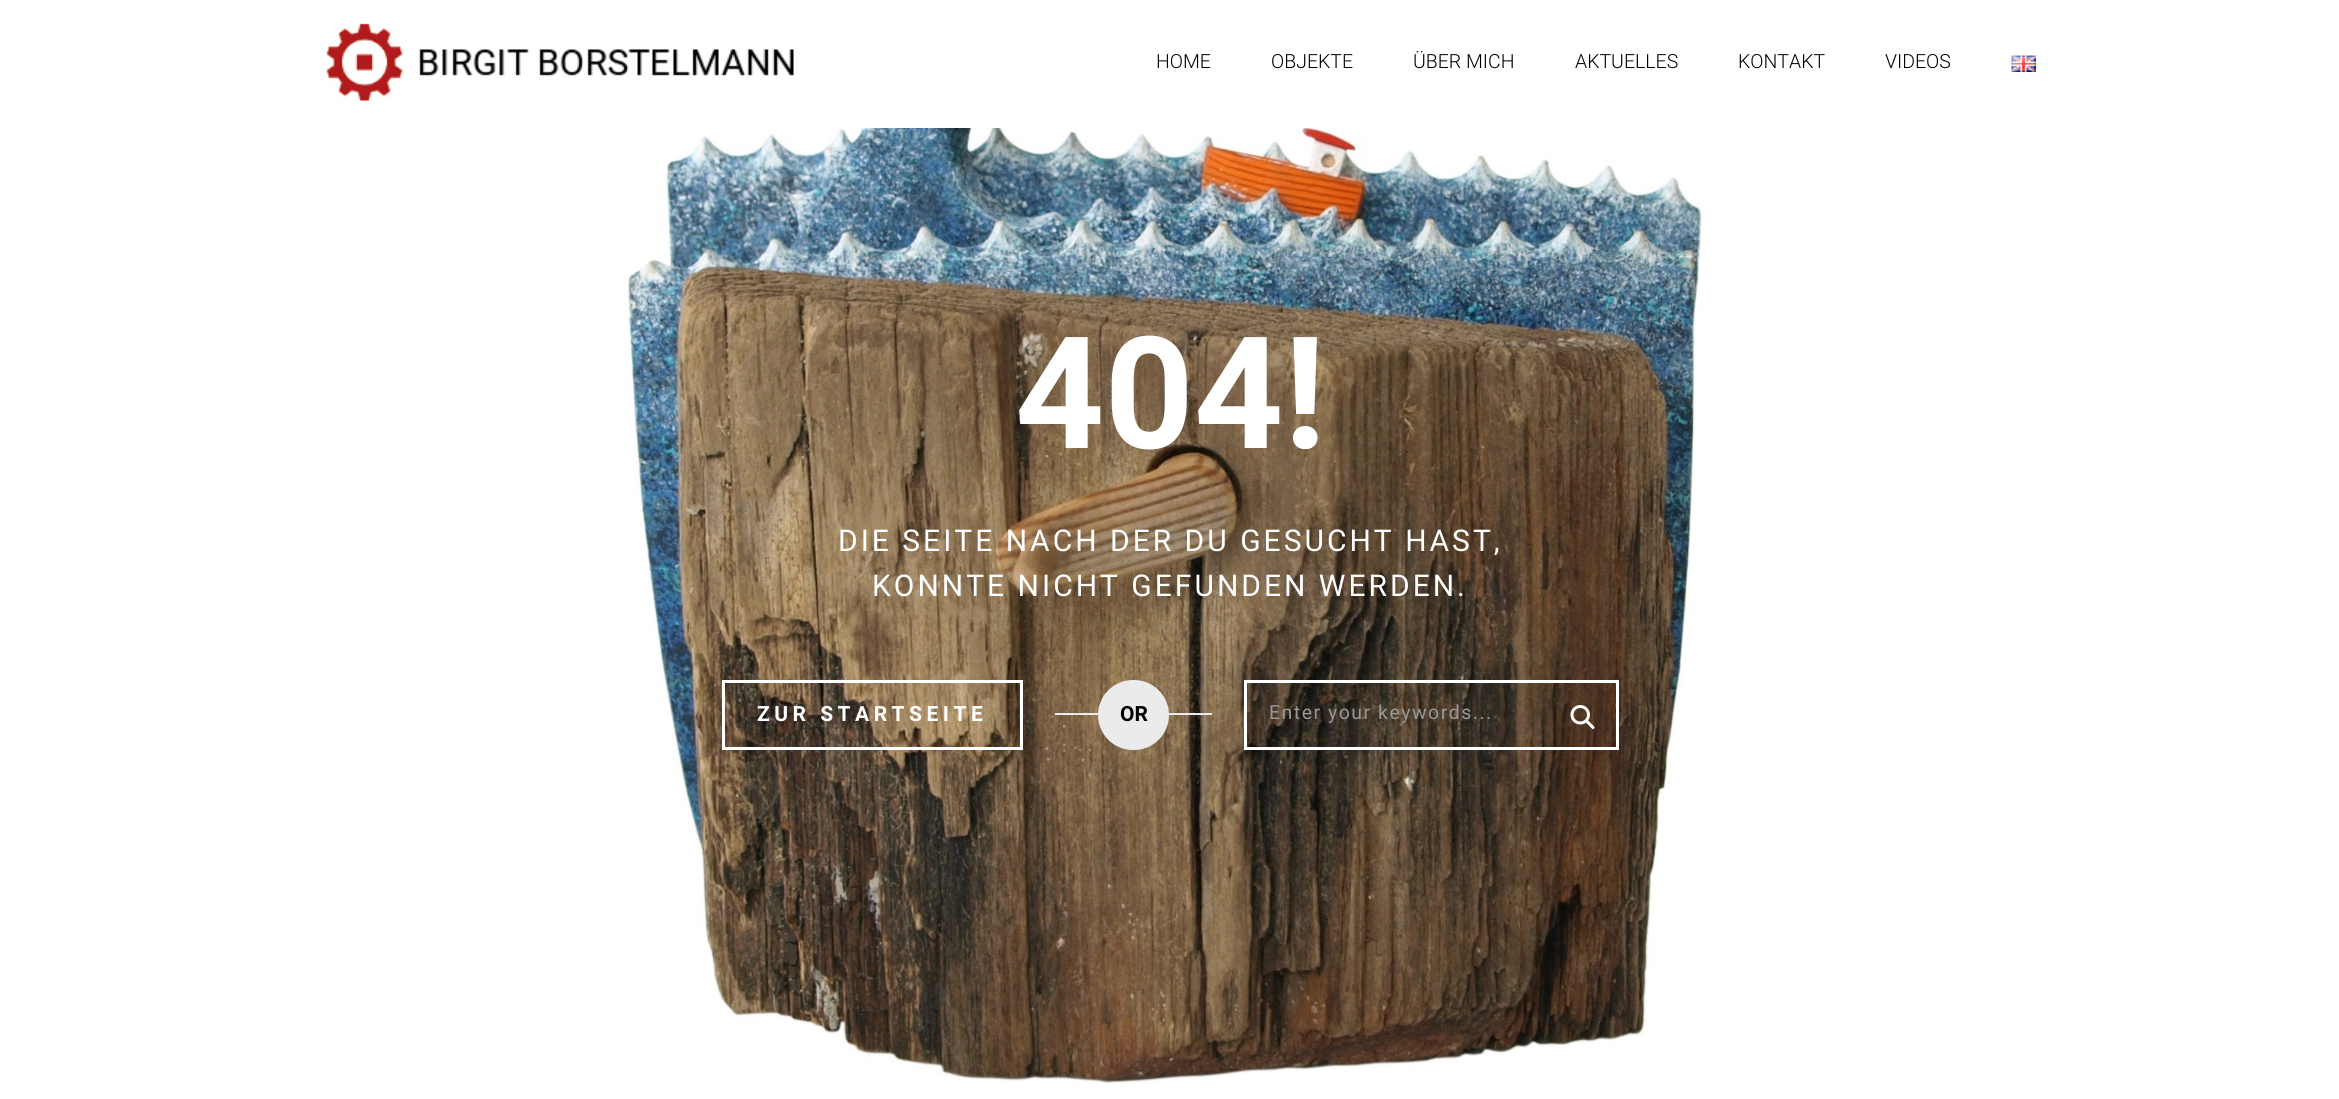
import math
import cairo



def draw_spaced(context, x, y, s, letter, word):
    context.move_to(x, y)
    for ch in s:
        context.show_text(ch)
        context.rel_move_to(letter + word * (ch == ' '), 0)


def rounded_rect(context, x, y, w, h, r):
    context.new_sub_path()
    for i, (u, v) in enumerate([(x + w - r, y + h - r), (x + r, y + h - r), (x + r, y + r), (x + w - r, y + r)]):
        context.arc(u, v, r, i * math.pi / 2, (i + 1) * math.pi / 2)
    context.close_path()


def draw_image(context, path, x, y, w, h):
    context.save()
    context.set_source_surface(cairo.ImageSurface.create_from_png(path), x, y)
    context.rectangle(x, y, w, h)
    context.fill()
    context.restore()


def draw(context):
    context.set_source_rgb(1, 1, 1)
    context.paint()
    draw_image(context, "images/1.png", 326, 23, 468, 78)
    draw_image(context, "images/2.png", 2011, 55, 25, 17)
    draw_image(context, "images/3.png", 624, 128, 1078, 956)
    context.rectangle(723.5, 681.5, 298, 67)
    context.set_source_rgb(1, 1, 1)
    context.set_line_width(3)
    context.stroke()
    context.set_source_rgb(235 / 255, 235 / 255, 235 / 255)
    rounded_rect(context, 1098, 680, 71, 70, 35)
    context.fill()
    context.rectangle(1055, 713, 45, 2)
    context.fill()
    context.rectangle(1167, 713, 45, 2)
    context.fill()
    context.rectangle(1245.5, 681.5, 372, 67)
    context.set_source_rgb(1, 1, 1)
    context.stroke()
    draw_image(context, "images/4.png", 1570, 705, 25, 24)
    context.select_font_face("Roboto Light")
    context.set_font_size(19.5)
    context.set_source_rgb(0, 0, 0)
    context.move_to(1156, 68)
    context.show_text("HOME")
    context.move_to(1271, 68)
    context.show_text("OBJEKTE")
    context.move_to(1413, 68)
    context.show_text("ÜBER MICH")
    context.move_to(1575, 68)
    context.show_text("AKTUELLES")
    context.move_to(1738, 68)
    context.show_text("KONTAKT")
    context.move_to(1885, 68)
    context.show_text("VIDEOS")
    context.select_font_face("Roboto", cairo.FontSlant.NORMAL, cairo.FontWeight.BOLD)
    context.set_font_size(156)
    context.set_source_rgb(1, 1, 1)
    context.move_to(1015, 448)
    context.show_text("404!")
    context.select_font_face("Roboto")
    context.set_font_size(30)
    draw_spaced(context, 838, 551, "DIE SEITE NACH DER DU GESUCHT HAST,", 3, 0)
    draw_spaced(context, 872, 596, "KONNTE NICHT GEFUNDEN WERDEN.", 3, 0)
    context.select_font_face("Roboto", cairo.FontSlant.NORMAL, cairo.FontWeight.BOLD)
    context.set_font_size(21)
    draw_spaced(context, 757, 721, "ZUR STARTSEITE", 4.5, 0)
    context.set_source_rgb(0, 0, 0)
    context.move_to(1120, 721)
    context.show_text("OR")
    context.select_font_face("Roboto")
    context.set_font_size(19.5)
    context.set_source_rgb(153 / 255, 153 / 255, 153 / 255)
    draw_spaced(context, 1269, 719, "Enter your keywords...", 1.5, 0)


surface = cairo.ImageSurface(cairo.Format.RGB24, 2339, 1099)
context = cairo.Context(surface)
options = cairo.FontOptions()
options.set_hint_metrics(cairo.HintMetrics.OFF)
options.set_hint_style(cairo.HintStyle.NONE)
context.set_font_options(options)
context.set_miter_limit(4)
draw(context)
surface.write_to_png("out.png")
